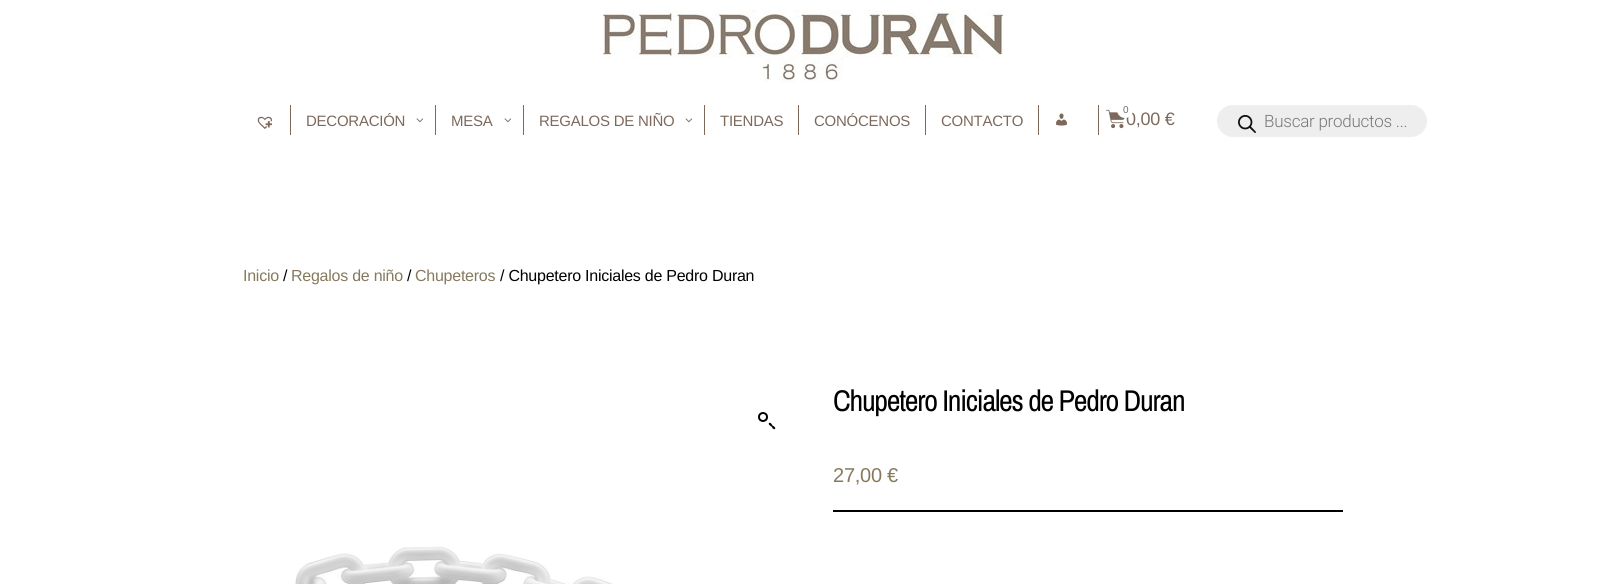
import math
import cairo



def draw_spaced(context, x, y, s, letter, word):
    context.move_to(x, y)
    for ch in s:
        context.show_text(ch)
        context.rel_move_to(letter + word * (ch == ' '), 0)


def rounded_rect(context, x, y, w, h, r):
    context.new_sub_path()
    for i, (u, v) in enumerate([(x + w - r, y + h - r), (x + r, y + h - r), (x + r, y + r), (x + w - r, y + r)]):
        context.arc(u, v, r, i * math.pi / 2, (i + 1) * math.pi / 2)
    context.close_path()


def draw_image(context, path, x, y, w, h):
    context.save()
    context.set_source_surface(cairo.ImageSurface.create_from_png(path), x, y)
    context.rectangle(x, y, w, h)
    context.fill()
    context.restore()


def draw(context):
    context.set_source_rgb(1, 1, 1)
    context.paint()
    draw_image(context, "images/1.png", 603, 10, 400, 72)
    context.set_source_rgb(125 / 255, 105 / 255, 92 / 255)
    context.rectangle(290, 105, 1, 30)
    context.fill()
    draw_image(context, "images/2.png", 257, 116, 15, 13)
    context.rectangle(435, 105, 1, 30)
    context.fill()
    draw_image(context, "images/3.png", 416, 118, 8, 5)
    context.rectangle(523, 105, 1, 30)
    context.fill()
    draw_image(context, "images/3.png", 504, 118, 8, 5)
    context.rectangle(704, 105, 1, 30)
    context.fill()
    draw_image(context, "images/3.png", 685, 118, 8, 5)
    context.rectangle(798, 105, 1, 30)
    context.fill()
    context.rectangle(925, 105, 1, 30)
    context.fill()
    context.rectangle(1038, 105, 1, 30)
    context.fill()
    context.rectangle(1098, 105, 1, 30)
    context.fill()
    draw_image(context, "images/4.png", 1056, 113, 11, 13)
    draw_image(context, "images/5.png", 1106, 109, 19, 20)
    context.set_source_rgb(238 / 255, 238 / 255, 238 / 255)
    rounded_rect(context, 1217, 105, 210, 32, 16)
    context.fill()
    draw_image(context, "images/6.png", 1238, 115, 18, 18)
    context.arc(763, 417, 4, 0, 2 * math.pi)
    context.set_source_rgb(0, 0, 0)
    context.stroke()
    context.new_path()
    context.move_to(769, 423)
    context.curve_to(770.5, 422, 772, 424.5, 772.5, 425.5)
    context.curve_to(773.5, 426, 776, 427.5, 775, 429)
    context.curve_to(773.5, 430, 772, 427.5, 771.5, 426.5)
    context.curve_to(770.5, 426, 768, 424.5, 769, 423)
    context.close_path()
    context.fill()
    draw_image(context, "images/7.png", 295, 546, 318, 38)
    context.rectangle(833, 510, 510, 2)
    context.fill()
    context.select_font_face("Liberation Sans")
    context.set_font_size(15)
    context.set_source_rgb(125 / 255, 105 / 255, 92 / 255)
    draw_spaced(context, 306, 126, "DECORACIÓN", -0.25, 0)
    draw_spaced(context, 451, 126, "MESA", -0.25, 0)
    draw_spaced(context, 539, 126, "REGALOS DE NIÑO", -0.25, 0)
    draw_spaced(context, 720, 126, "TIENDAS", -0.25, 0)
    draw_spaced(context, 814, 126, "CONÓCENOS", -0.25, 0)
    draw_spaced(context, 941, 126, "CONTACTO", -0.25, 0)
    context.set_font_size(18)
    draw_spaced(context, 1126, 125, "0,00 €", -0.25, 0)
    context.set_source_rgb(1, 1, 1)
    context.new_path()
    context.arc(1125, 110, 8, 0, 2 * math.pi)
    context.fill()
    context.set_font_size(10)
    context.set_source_rgb(125 / 255, 105 / 255, 92 / 255)
    draw_spaced(context, 1123, 113, "0", -0.25, 0)
    context.select_font_face("Roboto Light")
    context.set_font_size(17)
    context.set_source_rgb(119 / 255, 119 / 255, 119 / 255)
    draw_spaced(context, 1264, 127, "Buscar productos ...", -0.25, 0)
    context.select_font_face("Liberation Sans")
    context.set_font_size(16)
    context.set_source_rgb(134 / 255, 121 / 255, 93 / 255)
    draw_spaced(context, 243, 281, "Inicio", -0.25, 0)
    context.set_source_rgb(0, 0, 0)
    draw_spaced(context, 283, 281, "/", -0.25, 0)
    context.set_source_rgb(134 / 255, 121 / 255, 93 / 255)
    draw_spaced(context, 291, 281, "Regalos de niño", -0.25, 0)
    context.set_source_rgb(0, 0, 0)
    draw_spaced(context, 407, 281, "/", -0.25, 0)
    context.set_source_rgb(134 / 255, 121 / 255, 93 / 255)
    draw_spaced(context, 415, 281, "Chupeteros", -0.25, 0)
    context.set_source_rgb(0, 0, 0)
    draw_spaced(context, 500, 281, "/ Chupetero Iniciales de Pedro Duran", -0.25, 0)
    context.select_font_face("Archivo Narrow")
    context.set_font_size(30)
    draw_spaced(context, 833, 411, "Chupetero Iniciales de Pedro Duran", -1.25, 0)
    context.select_font_face("Liberation Sans")
    context.set_font_size(20)
    context.set_source_rgb(134 / 255, 121 / 255, 93 / 255)
    draw_spaced(context, 833, 482, "27,00 €", -0.25, 0)


surface = cairo.ImageSurface(cairo.Format.RGB24, 1606, 584)
context = cairo.Context(surface)
options = cairo.FontOptions()
options.set_hint_metrics(cairo.HintMetrics.OFF)
options.set_hint_style(cairo.HintStyle.NONE)
context.set_font_options(options)
context.set_miter_limit(4)
draw(context)
surface.write_to_png("out.png")
